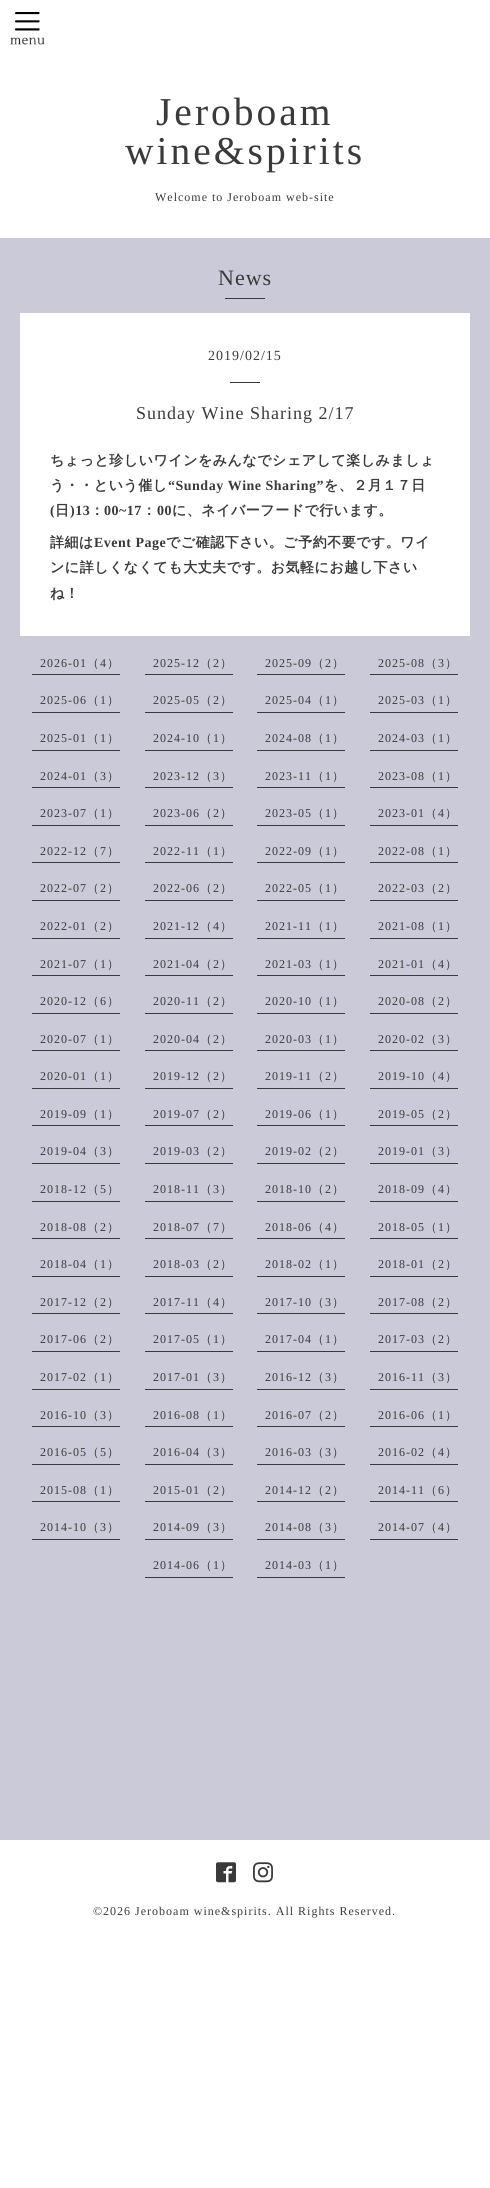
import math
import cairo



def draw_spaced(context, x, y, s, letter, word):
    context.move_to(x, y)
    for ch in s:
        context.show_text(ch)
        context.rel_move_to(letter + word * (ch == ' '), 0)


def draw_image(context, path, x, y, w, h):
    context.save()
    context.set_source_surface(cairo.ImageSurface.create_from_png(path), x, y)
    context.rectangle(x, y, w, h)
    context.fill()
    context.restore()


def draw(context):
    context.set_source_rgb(1, 1, 1)
    context.paint()
    draw_image(context, "images/1.png", 10, 12, 35, 33)
    context.set_source_rgb(203 / 255, 202 / 255, 216 / 255)
    context.rectangle(0, 238, 490, 1602)
    context.fill()
    context.set_source_rgb(58 / 255, 58 / 255, 58 / 255)
    context.rectangle(225, 298, 40, 1)
    context.fill()
    context.set_source_rgb(1, 1, 1)
    context.rectangle(20, 313, 450, 323)
    context.fill()
    context.set_source_rgb(58 / 255, 58 / 255, 58 / 255)
    context.rectangle(230, 382, 30, 1)
    context.fill()
    context.rectangle(32, 674, 88, 1)
    context.fill()
    context.rectangle(145, 674, 88, 1)
    context.fill()
    context.rectangle(257, 674, 88, 1)
    context.fill()
    context.rectangle(370, 674, 88, 1)
    context.fill()
    context.rectangle(32, 712, 88, 1)
    context.fill()
    context.rectangle(145, 712, 88, 1)
    context.fill()
    context.rectangle(257, 712, 88, 1)
    context.fill()
    context.rectangle(370, 712, 88, 1)
    context.fill()
    context.rectangle(32, 750, 88, 1)
    context.fill()
    context.rectangle(145, 750, 88, 1)
    context.fill()
    context.rectangle(257, 750, 88, 1)
    context.fill()
    context.rectangle(370, 750, 88, 1)
    context.fill()
    context.rectangle(32, 787, 88, 1)
    context.fill()
    context.rectangle(145, 787, 88, 1)
    context.fill()
    context.rectangle(257, 787, 88, 1)
    context.fill()
    context.rectangle(370, 787, 88, 1)
    context.fill()
    context.rectangle(32, 825, 88, 1)
    context.fill()
    context.rectangle(145, 825, 88, 1)
    context.fill()
    context.rectangle(257, 825, 88, 1)
    context.fill()
    context.rectangle(370, 825, 88, 1)
    context.fill()
    context.rectangle(32, 862, 88, 1)
    context.fill()
    context.rectangle(145, 862, 88, 1)
    context.fill()
    context.rectangle(257, 862, 88, 1)
    context.fill()
    context.rectangle(370, 862, 88, 1)
    context.fill()
    context.rectangle(32, 900, 88, 1)
    context.fill()
    context.rectangle(145, 900, 88, 1)
    context.fill()
    context.rectangle(257, 900, 88, 1)
    context.fill()
    context.rectangle(370, 900, 88, 1)
    context.fill()
    context.rectangle(32, 938, 88, 1)
    context.fill()
    context.rectangle(145, 938, 88, 1)
    context.fill()
    context.rectangle(257, 938, 88, 1)
    context.fill()
    context.rectangle(370, 938, 88, 1)
    context.fill()
    context.rectangle(32, 975, 88, 1)
    context.fill()
    context.rectangle(145, 975, 88, 1)
    context.fill()
    context.rectangle(257, 975, 88, 1)
    context.fill()
    context.rectangle(370, 975, 88, 1)
    context.fill()
    context.rectangle(32, 1013, 88, 1)
    context.fill()
    context.rectangle(145, 1013, 88, 1)
    context.fill()
    context.rectangle(257, 1013, 88, 1)
    context.fill()
    context.rectangle(370, 1013, 88, 1)
    context.fill()
    context.rectangle(32, 1050, 88, 1)
    context.fill()
    context.rectangle(145, 1050, 88, 1)
    context.fill()
    context.rectangle(257, 1050, 88, 1)
    context.fill()
    context.rectangle(370, 1050, 88, 1)
    context.fill()
    context.rectangle(32, 1088, 88, 1)
    context.fill()
    context.rectangle(145, 1088, 88, 1)
    context.fill()
    context.rectangle(257, 1088, 88, 1)
    context.fill()
    context.rectangle(370, 1088, 88, 1)
    context.fill()
    context.rectangle(32, 1125, 88, 1)
    context.fill()
    context.rectangle(145, 1125, 88, 1)
    context.fill()
    context.rectangle(257, 1125, 88, 1)
    context.fill()
    context.rectangle(370, 1125, 88, 1)
    context.fill()
    context.rectangle(32, 1163, 88, 1)
    context.fill()
    context.rectangle(145, 1163, 88, 1)
    context.fill()
    context.rectangle(257, 1163, 88, 1)
    context.fill()
    context.rectangle(370, 1163, 88, 1)
    context.fill()
    context.rectangle(32, 1201, 88, 1)
    context.fill()
    context.rectangle(145, 1201, 88, 1)
    context.fill()
    context.rectangle(257, 1201, 88, 1)
    context.fill()
    context.rectangle(370, 1201, 88, 1)
    context.fill()
    context.rectangle(32, 1238, 88, 1)
    context.fill()
    context.rectangle(145, 1238, 88, 1)
    context.fill()
    context.rectangle(257, 1238, 88, 1)
    context.fill()
    context.rectangle(370, 1238, 88, 1)
    context.fill()
    context.rectangle(32, 1276, 88, 1)
    context.fill()
    context.rectangle(145, 1276, 88, 1)
    context.fill()
    context.rectangle(257, 1276, 88, 1)
    context.fill()
    context.rectangle(370, 1276, 88, 1)
    context.fill()
    context.rectangle(32, 1313, 88, 1)
    context.fill()
    context.rectangle(145, 1313, 88, 1)
    context.fill()
    context.rectangle(257, 1313, 88, 1)
    context.fill()
    context.rectangle(370, 1313, 88, 1)
    context.fill()
    context.rectangle(32, 1351, 88, 1)
    context.fill()
    context.rectangle(145, 1351, 88, 1)
    context.fill()
    context.rectangle(257, 1351, 88, 1)
    context.fill()
    context.rectangle(370, 1351, 88, 1)
    context.fill()
    context.rectangle(32, 1389, 88, 1)
    context.fill()
    context.rectangle(145, 1389, 88, 1)
    context.fill()
    context.rectangle(257, 1389, 88, 1)
    context.fill()
    context.rectangle(370, 1389, 88, 1)
    context.fill()
    context.rectangle(32, 1426, 88, 1)
    context.fill()
    context.rectangle(145, 1426, 88, 1)
    context.fill()
    context.rectangle(257, 1426, 88, 1)
    context.fill()
    context.rectangle(370, 1426, 88, 1)
    context.fill()
    context.rectangle(32, 1464, 88, 1)
    context.fill()
    context.rectangle(145, 1464, 88, 1)
    context.fill()
    context.rectangle(257, 1464, 88, 1)
    context.fill()
    context.rectangle(370, 1464, 88, 1)
    context.fill()
    context.rectangle(32, 1501, 88, 1)
    context.fill()
    context.rectangle(145, 1501, 88, 1)
    context.fill()
    context.rectangle(257, 1501, 88, 1)
    context.fill()
    context.rectangle(370, 1501, 88, 1)
    context.fill()
    context.rectangle(32, 1539, 88, 1)
    context.fill()
    context.rectangle(145, 1539, 88, 1)
    context.fill()
    context.rectangle(257, 1539, 88, 1)
    context.fill()
    context.rectangle(370, 1539, 88, 1)
    context.fill()
    context.rectangle(145, 1577, 88, 1)
    context.fill()
    context.rectangle(257, 1577, 88, 1)
    context.fill()
    draw_image(context, "images/2.png", 216, 1862, 20, 21)
    draw_image(context, "images/3.png", 253, 1862, 20, 21)
    context.select_font_face("Liberation Serif")
    context.set_font_size(39.5)
    draw_spaced(context, 156, 125, "Jeroboam", 3, 0)
    draw_spaced(context, 125, 164, "wine&spirits", 3, 0)
    context.set_font_size(12)
    draw_spaced(context, 155, 201, "Welcome to Jeroboam web-site", 1, 0)
    context.set_font_size(22)
    draw_spaced(context, 218, 285, "News", 1, 0)
    context.set_font_size(14)
    draw_spaced(context, 208, 360, "2019/02/15", 1, 0)
    context.set_font_size(18)
    draw_spaced(context, 136, 419, "Sunday Wine Sharing 2/17", 1, 0)
    context.select_font_face("WenQuanYi Zen Hei", cairo.FontSlant.NORMAL, cairo.FontWeight.BOLD)
    context.set_font_size(14)
    draw_spaced(context, 50, 465, "ちょっと珍しいワインをみんなでシェアして楽しみましょ", 0.5, 0)
    draw_spaced(context, 50, 490, "う・・という催し", 0.5, 0)
    context.select_font_face("Liberation Serif", cairo.FontSlant.NORMAL, cairo.FontWeight.BOLD)
    draw_spaced(context, 168, 490, "“Sunday Wine Sharing”", 0.5, 0)
    context.select_font_face("WenQuanYi Zen Hei", cairo.FontSlant.NORMAL, cairo.FontWeight.BOLD)
    draw_spaced(context, 324, 490, "を、２月１７日", 0.5, 0)
    context.select_font_face("Liberation Serif", cairo.FontSlant.NORMAL, cairo.FontWeight.BOLD)
    draw_spaced(context, 50, 515, "(", 0.5, 0)
    context.select_font_face("WenQuanYi Zen Hei", cairo.FontSlant.NORMAL, cairo.FontWeight.BOLD)
    draw_spaced(context, 55, 515, "日", 0.5, 0)
    context.select_font_face("Liberation Serif", cairo.FontSlant.NORMAL, cairo.FontWeight.BOLD)
    draw_spaced(context, 70, 515, ")13", 0.5, 0)
    context.select_font_face("WenQuanYi Zen Hei", cairo.FontSlant.NORMAL, cairo.FontWeight.BOLD)
    draw_spaced(context, 90, 515, "：", 0.5, 0)
    context.select_font_face("Liberation Serif", cairo.FontSlant.NORMAL, cairo.FontWeight.BOLD)
    draw_spaced(context, 104, 515, "00~17", 0.5, 0)
    context.select_font_face("WenQuanYi Zen Hei", cairo.FontSlant.NORMAL, cairo.FontWeight.BOLD)
    draw_spaced(context, 142, 515, "：", 0.5, 0)
    context.select_font_face("Liberation Serif", cairo.FontSlant.NORMAL, cairo.FontWeight.BOLD)
    draw_spaced(context, 157, 515, "00", 0.5, 0)
    context.select_font_face("WenQuanYi Zen Hei", cairo.FontSlant.NORMAL, cairo.FontWeight.BOLD)
    draw_spaced(context, 172, 515, "に、ネイバーフードで行います。", 0.5, 0)
    draw_spaced(context, 50, 547, "詳細は", 0.5, 0)
    context.select_font_face("Liberation Serif", cairo.FontSlant.NORMAL, cairo.FontWeight.BOLD)
    draw_spaced(context, 94, 547, "Event Page", 0.5, 0)
    context.select_font_face("WenQuanYi Zen Hei", cairo.FontSlant.NORMAL, cairo.FontWeight.BOLD)
    draw_spaced(context, 166, 547, "でご確認下さい。ご予約不要です。ワイ", 0.5, 0)
    draw_spaced(context, 50, 572, "ンに詳しくなくても大丈夫です。お気軽にお越し下さい", 0.5, 0)
    draw_spaced(context, 50, 598, "ね！", 0.5, 0)
    context.select_font_face("Liberation Serif")
    context.set_font_size(12)
    draw_spaced(context, 40, 667, "2026-01", 1, 0)
    context.select_font_face("WenQuanYi Zen Hei Medium")
    draw_spaced(context, 87, 667, "（", 1, 0)
    context.select_font_face("Liberation Serif")
    draw_spaced(context, 100, 667, "4", 1, 0)
    context.select_font_face("WenQuanYi Zen Hei Medium")
    draw_spaced(context, 107, 667, "）", 1, 0)
    context.select_font_face("Liberation Serif")
    draw_spaced(context, 153, 667, "2025-12", 1, 0)
    context.select_font_face("WenQuanYi Zen Hei Medium")
    draw_spaced(context, 200, 667, "（", 1, 0)
    context.select_font_face("Liberation Serif")
    draw_spaced(context, 213, 667, "2", 1, 0)
    context.select_font_face("WenQuanYi Zen Hei Medium")
    draw_spaced(context, 220, 667, "）", 1, 0)
    context.select_font_face("Liberation Serif")
    draw_spaced(context, 265, 667, "2025-09", 1, 0)
    context.select_font_face("WenQuanYi Zen Hei Medium")
    draw_spaced(context, 312, 667, "（", 1, 0)
    context.select_font_face("Liberation Serif")
    draw_spaced(context, 325, 667, "2", 1, 0)
    context.select_font_face("WenQuanYi Zen Hei Medium")
    draw_spaced(context, 332, 667, "）", 1, 0)
    context.select_font_face("Liberation Serif")
    draw_spaced(context, 378, 667, "2025-08", 1, 0)
    context.select_font_face("WenQuanYi Zen Hei Medium")
    draw_spaced(context, 425, 667, "（", 1, 0)
    context.select_font_face("Liberation Serif")
    draw_spaced(context, 438, 667, "3", 1, 0)
    context.select_font_face("WenQuanYi Zen Hei Medium")
    draw_spaced(context, 445, 667, "）", 1, 0)
    context.select_font_face("Liberation Serif")
    draw_spaced(context, 40, 704, "2025-06", 1, 0)
    context.select_font_face("WenQuanYi Zen Hei Medium")
    draw_spaced(context, 87, 704, "（", 1, 0)
    context.select_font_face("Liberation Serif")
    draw_spaced(context, 100, 704, "1", 1, 0)
    context.select_font_face("WenQuanYi Zen Hei Medium")
    draw_spaced(context, 107, 704, "）", 1, 0)
    context.select_font_face("Liberation Serif")
    draw_spaced(context, 153, 704, "2025-05", 1, 0)
    context.select_font_face("WenQuanYi Zen Hei Medium")
    draw_spaced(context, 200, 704, "（", 1, 0)
    context.select_font_face("Liberation Serif")
    draw_spaced(context, 213, 704, "2", 1, 0)
    context.select_font_face("WenQuanYi Zen Hei Medium")
    draw_spaced(context, 220, 704, "）", 1, 0)
    context.select_font_face("Liberation Serif")
    draw_spaced(context, 265, 704, "2025-04", 1, 0)
    context.select_font_face("WenQuanYi Zen Hei Medium")
    draw_spaced(context, 312, 704, "（", 1, 0)
    context.select_font_face("Liberation Serif")
    draw_spaced(context, 325, 704, "1", 1, 0)
    context.select_font_face("WenQuanYi Zen Hei Medium")
    draw_spaced(context, 332, 704, "）", 1, 0)
    context.select_font_face("Liberation Serif")
    draw_spaced(context, 378, 704, "2025-03", 1, 0)
    context.select_font_face("WenQuanYi Zen Hei Medium")
    draw_spaced(context, 425, 704, "（", 1, 0)
    context.select_font_face("Liberation Serif")
    draw_spaced(context, 438, 704, "1", 1, 0)
    context.select_font_face("WenQuanYi Zen Hei Medium")
    draw_spaced(context, 445, 704, "）", 1, 0)
    context.select_font_face("Liberation Serif")
    draw_spaced(context, 40, 742, "2025-01", 1, 0)
    context.select_font_face("WenQuanYi Zen Hei Medium")
    draw_spaced(context, 87, 742, "（", 1, 0)
    context.select_font_face("Liberation Serif")
    draw_spaced(context, 100, 742, "1", 1, 0)
    context.select_font_face("WenQuanYi Zen Hei Medium")
    draw_spaced(context, 107, 742, "）", 1, 0)
    context.select_font_face("Liberation Serif")
    draw_spaced(context, 153, 742, "2024-10", 1, 0)
    context.select_font_face("WenQuanYi Zen Hei Medium")
    draw_spaced(context, 200, 742, "（", 1, 0)
    context.select_font_face("Liberation Serif")
    draw_spaced(context, 213, 742, "1", 1, 0)
    context.select_font_face("WenQuanYi Zen Hei Medium")
    draw_spaced(context, 220, 742, "）", 1, 0)
    context.select_font_face("Liberation Serif")
    draw_spaced(context, 265, 742, "2024-08", 1, 0)
    context.select_font_face("WenQuanYi Zen Hei Medium")
    draw_spaced(context, 312, 742, "（", 1, 0)
    context.select_font_face("Liberation Serif")
    draw_spaced(context, 325, 742, "1", 1, 0)
    context.select_font_face("WenQuanYi Zen Hei Medium")
    draw_spaced(context, 332, 742, "）", 1, 0)
    context.select_font_face("Liberation Serif")
    draw_spaced(context, 378, 742, "2024-03", 1, 0)
    context.select_font_face("WenQuanYi Zen Hei Medium")
    draw_spaced(context, 425, 742, "（", 1, 0)
    context.select_font_face("Liberation Serif")
    draw_spaced(context, 438, 742, "1", 1, 0)
    context.select_font_face("WenQuanYi Zen Hei Medium")
    draw_spaced(context, 445, 742, "）", 1, 0)
    context.select_font_face("Liberation Serif")
    draw_spaced(context, 40, 780, "2024-01", 1, 0)
    context.select_font_face("WenQuanYi Zen Hei Medium")
    draw_spaced(context, 87, 780, "（", 1, 0)
    context.select_font_face("Liberation Serif")
    draw_spaced(context, 100, 780, "3", 1, 0)
    context.select_font_face("WenQuanYi Zen Hei Medium")
    draw_spaced(context, 107, 780, "）", 1, 0)
    context.select_font_face("Liberation Serif")
    draw_spaced(context, 153, 780, "2023-12", 1, 0)
    context.select_font_face("WenQuanYi Zen Hei Medium")
    draw_spaced(context, 200, 780, "（", 1, 0)
    context.select_font_face("Liberation Serif")
    draw_spaced(context, 213, 780, "3", 1, 0)
    context.select_font_face("WenQuanYi Zen Hei Medium")
    draw_spaced(context, 220, 780, "）", 1, 0)
    context.select_font_face("Liberation Serif")
    draw_spaced(context, 265, 780, "2023-11", 1, 0)
    context.select_font_face("WenQuanYi Zen Hei Medium")
    draw_spaced(context, 312, 780, "（", 1, 0)
    context.select_font_face("Liberation Serif")
    draw_spaced(context, 325, 780, "1", 1, 0)
    context.select_font_face("WenQuanYi Zen Hei Medium")
    draw_spaced(context, 332, 780, "）", 1, 0)
    context.select_font_face("Liberation Serif")
    draw_spaced(context, 378, 780, "2023-08", 1, 0)
    context.select_font_face("WenQuanYi Zen Hei Medium")
    draw_spaced(context, 425, 780, "（", 1, 0)
    context.select_font_face("Liberation Serif")
    draw_spaced(context, 438, 780, "1", 1, 0)
    context.select_font_face("WenQuanYi Zen Hei Medium")
    draw_spaced(context, 445, 780, "）", 1, 0)
    context.select_font_face("Liberation Serif")
    draw_spaced(context, 40, 817, "2023-07", 1, 0)
    context.select_font_face("WenQuanYi Zen Hei Medium")
    draw_spaced(context, 87, 817, "（", 1, 0)
    context.select_font_face("Liberation Serif")
    draw_spaced(context, 100, 817, "1", 1, 0)
    context.select_font_face("WenQuanYi Zen Hei Medium")
    draw_spaced(context, 107, 817, "）", 1, 0)
    context.select_font_face("Liberation Serif")
    draw_spaced(context, 153, 817, "2023-06", 1, 0)
    context.select_font_face("WenQuanYi Zen Hei Medium")
    draw_spaced(context, 200, 817, "（", 1, 0)
    context.select_font_face("Liberation Serif")
    draw_spaced(context, 213, 817, "2", 1, 0)
    context.select_font_face("WenQuanYi Zen Hei Medium")
    draw_spaced(context, 220, 817, "）", 1, 0)
    context.select_font_face("Liberation Serif")
    draw_spaced(context, 265, 817, "2023-05", 1, 0)
    context.select_font_face("WenQuanYi Zen Hei Medium")
    draw_spaced(context, 312, 817, "（", 1, 0)
    context.select_font_face("Liberation Serif")
    draw_spaced(context, 325, 817, "1", 1, 0)
    context.select_font_face("WenQuanYi Zen Hei Medium")
    draw_spaced(context, 332, 817, "）", 1, 0)
    context.select_font_face("Liberation Serif")
    draw_spaced(context, 378, 817, "2023-01", 1, 0)
    context.select_font_face("WenQuanYi Zen Hei Medium")
    draw_spaced(context, 425, 817, "（", 1, 0)
    context.select_font_face("Liberation Serif")
    draw_spaced(context, 438, 817, "4", 1, 0)
    context.select_font_face("WenQuanYi Zen Hei Medium")
    draw_spaced(context, 445, 817, "）", 1, 0)
    context.select_font_face("Liberation Serif")
    draw_spaced(context, 40, 855, "2022-12", 1, 0)
    context.select_font_face("WenQuanYi Zen Hei Medium")
    draw_spaced(context, 87, 855, "（", 1, 0)
    context.select_font_face("Liberation Serif")
    draw_spaced(context, 100, 855, "7", 1, 0)
    context.select_font_face("WenQuanYi Zen Hei Medium")
    draw_spaced(context, 107, 855, "）", 1, 0)
    context.select_font_face("Liberation Serif")
    draw_spaced(context, 153, 855, "2022-11", 1, 0)
    context.select_font_face("WenQuanYi Zen Hei Medium")
    draw_spaced(context, 200, 855, "（", 1, 0)
    context.select_font_face("Liberation Serif")
    draw_spaced(context, 213, 855, "1", 1, 0)
    context.select_font_face("WenQuanYi Zen Hei Medium")
    draw_spaced(context, 220, 855, "）", 1, 0)
    context.select_font_face("Liberation Serif")
    draw_spaced(context, 265, 855, "2022-09", 1, 0)
    context.select_font_face("WenQuanYi Zen Hei Medium")
    draw_spaced(context, 312, 855, "（", 1, 0)
    context.select_font_face("Liberation Serif")
    draw_spaced(context, 325, 855, "1", 1, 0)
    context.select_font_face("WenQuanYi Zen Hei Medium")
    draw_spaced(context, 332, 855, "）", 1, 0)
    context.select_font_face("Liberation Serif")
    draw_spaced(context, 378, 855, "2022-08", 1, 0)
    context.select_font_face("WenQuanYi Zen Hei Medium")
    draw_spaced(context, 425, 855, "（", 1, 0)
    context.select_font_face("Liberation Serif")
    draw_spaced(context, 438, 855, "1", 1, 0)
    context.select_font_face("WenQuanYi Zen Hei Medium")
    draw_spaced(context, 445, 855, "）", 1, 0)
    context.select_font_face("Liberation Serif")
    draw_spaced(context, 40, 892, "2022-07", 1, 0)
    context.select_font_face("WenQuanYi Zen Hei Medium")
    draw_spaced(context, 87, 892, "（", 1, 0)
    context.select_font_face("Liberation Serif")
    draw_spaced(context, 100, 892, "2", 1, 0)
    context.select_font_face("WenQuanYi Zen Hei Medium")
    draw_spaced(context, 107, 892, "）", 1, 0)
    context.select_font_face("Liberation Serif")
    draw_spaced(context, 153, 892, "2022-06", 1, 0)
    context.select_font_face("WenQuanYi Zen Hei Medium")
    draw_spaced(context, 200, 892, "（", 1, 0)
    context.select_font_face("Liberation Serif")
    draw_spaced(context, 213, 892, "2", 1, 0)
    context.select_font_face("WenQuanYi Zen Hei Medium")
    draw_spaced(context, 220, 892, "）", 1, 0)
    context.select_font_face("Liberation Serif")
    draw_spaced(context, 265, 892, "2022-05", 1, 0)
    context.select_font_face("WenQuanYi Zen Hei Medium")
    draw_spaced(context, 312, 892, "（", 1, 0)
    context.select_font_face("Liberation Serif")
    draw_spaced(context, 325, 892, "1", 1, 0)
    context.select_font_face("WenQuanYi Zen Hei Medium")
    draw_spaced(context, 332, 892, "）", 1, 0)
    context.select_font_face("Liberation Serif")
    draw_spaced(context, 378, 892, "2022-03", 1, 0)
    context.select_font_face("WenQuanYi Zen Hei Medium")
    draw_spaced(context, 425, 892, "（", 1, 0)
    context.select_font_face("Liberation Serif")
    draw_spaced(context, 438, 892, "2", 1, 0)
    context.select_font_face("WenQuanYi Zen Hei Medium")
    draw_spaced(context, 445, 892, "）", 1, 0)
    context.select_font_face("Liberation Serif")
    draw_spaced(context, 40, 930, "2022-01", 1, 0)
    context.select_font_face("WenQuanYi Zen Hei Medium")
    draw_spaced(context, 87, 930, "（", 1, 0)
    context.select_font_face("Liberation Serif")
    draw_spaced(context, 100, 930, "2", 1, 0)
    context.select_font_face("WenQuanYi Zen Hei Medium")
    draw_spaced(context, 107, 930, "）", 1, 0)
    context.select_font_face("Liberation Serif")
    draw_spaced(context, 153, 930, "2021-12", 1, 0)
    context.select_font_face("WenQuanYi Zen Hei Medium")
    draw_spaced(context, 200, 930, "（", 1, 0)
    context.select_font_face("Liberation Serif")
    draw_spaced(context, 213, 930, "4", 1, 0)
    context.select_font_face("WenQuanYi Zen Hei Medium")
    draw_spaced(context, 220, 930, "）", 1, 0)
    context.select_font_face("Liberation Serif")
    draw_spaced(context, 265, 930, "2021-11", 1, 0)
    context.select_font_face("WenQuanYi Zen Hei Medium")
    draw_spaced(context, 312, 930, "（", 1, 0)
    context.select_font_face("Liberation Serif")
    draw_spaced(context, 325, 930, "1", 1, 0)
    context.select_font_face("WenQuanYi Zen Hei Medium")
    draw_spaced(context, 332, 930, "）", 1, 0)
    context.select_font_face("Liberation Serif")
    draw_spaced(context, 378, 930, "2021-08", 1, 0)
    context.select_font_face("WenQuanYi Zen Hei Medium")
    draw_spaced(context, 425, 930, "（", 1, 0)
    context.select_font_face("Liberation Serif")
    draw_spaced(context, 438, 930, "1", 1, 0)
    context.select_font_face("WenQuanYi Zen Hei Medium")
    draw_spaced(context, 445, 930, "）", 1, 0)
    context.select_font_face("Liberation Serif")
    draw_spaced(context, 40, 968, "2021-07", 1, 0)
    context.select_font_face("WenQuanYi Zen Hei Medium")
    draw_spaced(context, 87, 968, "（", 1, 0)
    context.select_font_face("Liberation Serif")
    draw_spaced(context, 100, 968, "1", 1, 0)
    context.select_font_face("WenQuanYi Zen Hei Medium")
    draw_spaced(context, 107, 968, "）", 1, 0)
    context.select_font_face("Liberation Serif")
    draw_spaced(context, 153, 968, "2021-04", 1, 0)
    context.select_font_face("WenQuanYi Zen Hei Medium")
    draw_spaced(context, 200, 968, "（", 1, 0)
    context.select_font_face("Liberation Serif")
    draw_spaced(context, 213, 968, "2", 1, 0)
    context.select_font_face("WenQuanYi Zen Hei Medium")
    draw_spaced(context, 220, 968, "）", 1, 0)
    context.select_font_face("Liberation Serif")
    draw_spaced(context, 265, 968, "2021-03", 1, 0)
    context.select_font_face("WenQuanYi Zen Hei Medium")
    draw_spaced(context, 312, 968, "（", 1, 0)
    context.select_font_face("Liberation Serif")
    draw_spaced(context, 325, 968, "1", 1, 0)
    context.select_font_face("WenQuanYi Zen Hei Medium")
    draw_spaced(context, 332, 968, "）", 1, 0)
    context.select_font_face("Liberation Serif")
    draw_spaced(context, 378, 968, "2021-01", 1, 0)
    context.select_font_face("WenQuanYi Zen Hei Medium")
    draw_spaced(context, 425, 968, "（", 1, 0)
    context.select_font_face("Liberation Serif")
    draw_spaced(context, 438, 968, "4", 1, 0)
    context.select_font_face("WenQuanYi Zen Hei Medium")
    draw_spaced(context, 445, 968, "）", 1, 0)
    context.select_font_face("Liberation Serif")
    draw_spaced(context, 40, 1005, "2020-12", 1, 0)
    context.select_font_face("WenQuanYi Zen Hei Medium")
    draw_spaced(context, 87, 1005, "（", 1, 0)
    context.select_font_face("Liberation Serif")
    draw_spaced(context, 100, 1005, "6", 1, 0)
    context.select_font_face("WenQuanYi Zen Hei Medium")
    draw_spaced(context, 107, 1005, "）", 1, 0)
    context.select_font_face("Liberation Serif")
    draw_spaced(context, 153, 1005, "2020-11", 1, 0)
    context.select_font_face("WenQuanYi Zen Hei Medium")
    draw_spaced(context, 200, 1005, "（", 1, 0)
    context.select_font_face("Liberation Serif")
    draw_spaced(context, 213, 1005, "2", 1, 0)
    context.select_font_face("WenQuanYi Zen Hei Medium")
    draw_spaced(context, 220, 1005, "）", 1, 0)
    context.select_font_face("Liberation Serif")
    draw_spaced(context, 265, 1005, "2020-10", 1, 0)
    context.select_font_face("WenQuanYi Zen Hei Medium")
    draw_spaced(context, 312, 1005, "（", 1, 0)
    context.select_font_face("Liberation Serif")
    draw_spaced(context, 325, 1005, "1", 1, 0)
    context.select_font_face("WenQuanYi Zen Hei Medium")
    draw_spaced(context, 332, 1005, "）", 1, 0)
    context.select_font_face("Liberation Serif")
    draw_spaced(context, 378, 1005, "2020-08", 1, 0)
    context.select_font_face("WenQuanYi Zen Hei Medium")
    draw_spaced(context, 425, 1005, "（", 1, 0)
    context.select_font_face("Liberation Serif")
    draw_spaced(context, 438, 1005, "2", 1, 0)
    context.select_font_face("WenQuanYi Zen Hei Medium")
    draw_spaced(context, 445, 1005, "）", 1, 0)
    context.select_font_face("Liberation Serif")
    draw_spaced(context, 40, 1043, "2020-07", 1, 0)
    context.select_font_face("WenQuanYi Zen Hei Medium")
    draw_spaced(context, 87, 1043, "（", 1, 0)
    context.select_font_face("Liberation Serif")
    draw_spaced(context, 100, 1043, "1", 1, 0)
    context.select_font_face("WenQuanYi Zen Hei Medium")
    draw_spaced(context, 107, 1043, "）", 1, 0)
    context.select_font_face("Liberation Serif")
    draw_spaced(context, 153, 1043, "2020-04", 1, 0)
    context.select_font_face("WenQuanYi Zen Hei Medium")
    draw_spaced(context, 200, 1043, "（", 1, 0)
    context.select_font_face("Liberation Serif")
    draw_spaced(context, 213, 1043, "2", 1, 0)
    context.select_font_face("WenQuanYi Zen Hei Medium")
    draw_spaced(context, 220, 1043, "）", 1, 0)
    context.select_font_face("Liberation Serif")
    draw_spaced(context, 265, 1043, "2020-03", 1, 0)
    context.select_font_face("WenQuanYi Zen Hei Medium")
    draw_spaced(context, 312, 1043, "（", 1, 0)
    context.select_font_face("Liberation Serif")
    draw_spaced(context, 325, 1043, "1", 1, 0)
    context.select_font_face("WenQuanYi Zen Hei Medium")
    draw_spaced(context, 332, 1043, "）", 1, 0)
    context.select_font_face("Liberation Serif")
    draw_spaced(context, 378, 1043, "2020-02", 1, 0)
    context.select_font_face("WenQuanYi Zen Hei Medium")
    draw_spaced(context, 425, 1043, "（", 1, 0)
    context.select_font_face("Liberation Serif")
    draw_spaced(context, 438, 1043, "3", 1, 0)
    context.select_font_face("WenQuanYi Zen Hei Medium")
    draw_spaced(context, 445, 1043, "）", 1, 0)
    context.select_font_face("Liberation Serif")
    draw_spaced(context, 40, 1080, "2020-01", 1, 0)
    context.select_font_face("WenQuanYi Zen Hei Medium")
    draw_spaced(context, 87, 1080, "（", 1, 0)
    context.select_font_face("Liberation Serif")
    draw_spaced(context, 100, 1080, "1", 1, 0)
    context.select_font_face("WenQuanYi Zen Hei Medium")
    draw_spaced(context, 107, 1080, "）", 1, 0)
    context.select_font_face("Liberation Serif")
    draw_spaced(context, 153, 1080, "2019-12", 1, 0)
    context.select_font_face("WenQuanYi Zen Hei Medium")
    draw_spaced(context, 200, 1080, "（", 1, 0)
    context.select_font_face("Liberation Serif")
    draw_spaced(context, 213, 1080, "2", 1, 0)
    context.select_font_face("WenQuanYi Zen Hei Medium")
    draw_spaced(context, 220, 1080, "）", 1, 0)
    context.select_font_face("Liberation Serif")
    draw_spaced(context, 265, 1080, "2019-11", 1, 0)
    context.select_font_face("WenQuanYi Zen Hei Medium")
    draw_spaced(context, 312, 1080, "（", 1, 0)
    context.select_font_face("Liberation Serif")
    draw_spaced(context, 325, 1080, "2", 1, 0)
    context.select_font_face("WenQuanYi Zen Hei Medium")
    draw_spaced(context, 332, 1080, "）", 1, 0)
    context.select_font_face("Liberation Serif")
    draw_spaced(context, 378, 1080, "2019-10", 1, 0)
    context.select_font_face("WenQuanYi Zen Hei Medium")
    draw_spaced(context, 425, 1080, "（", 1, 0)
    context.select_font_face("Liberation Serif")
    draw_spaced(context, 438, 1080, "4", 1, 0)
    context.select_font_face("WenQuanYi Zen Hei Medium")
    draw_spaced(context, 445, 1080, "）", 1, 0)
    context.select_font_face("Liberation Serif")
    draw_spaced(context, 40, 1118, "2019-09", 1, 0)
    context.select_font_face("WenQuanYi Zen Hei Medium")
    draw_spaced(context, 87, 1118, "（", 1, 0)
    context.select_font_face("Liberation Serif")
    draw_spaced(context, 100, 1118, "1", 1, 0)
    context.select_font_face("WenQuanYi Zen Hei Medium")
    draw_spaced(context, 107, 1118, "）", 1, 0)
    context.select_font_face("Liberation Serif")
    draw_spaced(context, 153, 1118, "2019-07", 1, 0)
    context.select_font_face("WenQuanYi Zen Hei Medium")
    draw_spaced(context, 200, 1118, "（", 1, 0)
    context.select_font_face("Liberation Serif")
    draw_spaced(context, 213, 1118, "2", 1, 0)
    context.select_font_face("WenQuanYi Zen Hei Medium")
    draw_spaced(context, 220, 1118, "）", 1, 0)
    context.select_font_face("Liberation Serif")
    draw_spaced(context, 265, 1118, "2019-06", 1, 0)
    context.select_font_face("WenQuanYi Zen Hei Medium")
    draw_spaced(context, 312, 1118, "（", 1, 0)
    context.select_font_face("Liberation Serif")
    draw_spaced(context, 325, 1118, "1", 1, 0)
    context.select_font_face("WenQuanYi Zen Hei Medium")
    draw_spaced(context, 332, 1118, "）", 1, 0)
    context.select_font_face("Liberation Serif")
    draw_spaced(context, 378, 1118, "2019-05", 1, 0)
    context.select_font_face("WenQuanYi Zen Hei Medium")
    draw_spaced(context, 425, 1118, "（", 1, 0)
    context.select_font_face("Liberation Serif")
    draw_spaced(context, 438, 1118, "2", 1, 0)
    context.select_font_face("WenQuanYi Zen Hei Medium")
    draw_spaced(context, 445, 1118, "）", 1, 0)
    context.select_font_face("Liberation Serif")
    draw_spaced(context, 40, 1155, "2019-04", 1, 0)
    context.select_font_face("WenQuanYi Zen Hei Medium")
    draw_spaced(context, 87, 1155, "（", 1, 0)
    context.select_font_face("Liberation Serif")
    draw_spaced(context, 100, 1155, "3", 1, 0)
    context.select_font_face("WenQuanYi Zen Hei Medium")
    draw_spaced(context, 107, 1155, "）", 1, 0)
    context.select_font_face("Liberation Serif")
    draw_spaced(context, 153, 1155, "2019-03", 1, 0)
    context.select_font_face("WenQuanYi Zen Hei Medium")
    draw_spaced(context, 200, 1155, "（", 1, 0)
    context.select_font_face("Liberation Serif")
    draw_spaced(context, 213, 1155, "2", 1, 0)
    context.select_font_face("WenQuanYi Zen Hei Medium")
    draw_spaced(context, 220, 1155, "）", 1, 0)
    context.select_font_face("Liberation Serif")
    draw_spaced(context, 265, 1155, "2019-02", 1, 0)
    context.select_font_face("WenQuanYi Zen Hei Medium")
    draw_spaced(context, 312, 1155, "（", 1, 0)
    context.select_font_face("Liberation Serif")
    draw_spaced(context, 325, 1155, "2", 1, 0)
    context.select_font_face("WenQuanYi Zen Hei Medium")
    draw_spaced(context, 332, 1155, "）", 1, 0)
    context.select_font_face("Liberation Serif")
    draw_spaced(context, 378, 1155, "2019-01", 1, 0)
    context.select_font_face("WenQuanYi Zen Hei Medium")
    draw_spaced(context, 425, 1155, "（", 1, 0)
    context.select_font_face("Liberation Serif")
    draw_spaced(context, 438, 1155, "3", 1, 0)
    context.select_font_face("WenQuanYi Zen Hei Medium")
    draw_spaced(context, 445, 1155, "）", 1, 0)
    context.select_font_face("Liberation Serif")
    draw_spaced(context, 40, 1193, "2018-12", 1, 0)
    context.select_font_face("WenQuanYi Zen Hei Medium")
    draw_spaced(context, 87, 1193, "（", 1, 0)
    context.select_font_face("Liberation Serif")
    draw_spaced(context, 100, 1193, "5", 1, 0)
    context.select_font_face("WenQuanYi Zen Hei Medium")
    draw_spaced(context, 107, 1193, "）", 1, 0)
    context.select_font_face("Liberation Serif")
    draw_spaced(context, 153, 1193, "2018-11", 1, 0)
    context.select_font_face("WenQuanYi Zen Hei Medium")
    draw_spaced(context, 200, 1193, "（", 1, 0)
    context.select_font_face("Liberation Serif")
    draw_spaced(context, 213, 1193, "3", 1, 0)
    context.select_font_face("WenQuanYi Zen Hei Medium")
    draw_spaced(context, 220, 1193, "）", 1, 0)
    context.select_font_face("Liberation Serif")
    draw_spaced(context, 265, 1193, "2018-10", 1, 0)
    context.select_font_face("WenQuanYi Zen Hei Medium")
    draw_spaced(context, 312, 1193, "（", 1, 0)
    context.select_font_face("Liberation Serif")
    draw_spaced(context, 325, 1193, "2", 1, 0)
    context.select_font_face("WenQuanYi Zen Hei Medium")
    draw_spaced(context, 332, 1193, "）", 1, 0)
    context.select_font_face("Liberation Serif")
    draw_spaced(context, 378, 1193, "2018-09", 1, 0)
    context.select_font_face("WenQuanYi Zen Hei Medium")
    draw_spaced(context, 425, 1193, "（", 1, 0)
    context.select_font_face("Liberation Serif")
    draw_spaced(context, 438, 1193, "4", 1, 0)
    context.select_font_face("WenQuanYi Zen Hei Medium")
    draw_spaced(context, 445, 1193, "）", 1, 0)
    context.select_font_face("Liberation Serif")
    draw_spaced(context, 40, 1231, "2018-08", 1, 0)
    context.select_font_face("WenQuanYi Zen Hei Medium")
    draw_spaced(context, 87, 1231, "（", 1, 0)
    context.select_font_face("Liberation Serif")
    draw_spaced(context, 100, 1231, "2", 1, 0)
    context.select_font_face("WenQuanYi Zen Hei Medium")
    draw_spaced(context, 107, 1231, "）", 1, 0)
    context.select_font_face("Liberation Serif")
    draw_spaced(context, 153, 1231, "2018-07", 1, 0)
    context.select_font_face("WenQuanYi Zen Hei Medium")
    draw_spaced(context, 200, 1231, "（", 1, 0)
    context.select_font_face("Liberation Serif")
    draw_spaced(context, 213, 1231, "7", 1, 0)
    context.select_font_face("WenQuanYi Zen Hei Medium")
    draw_spaced(context, 220, 1231, "）", 1, 0)
    context.select_font_face("Liberation Serif")
    draw_spaced(context, 265, 1231, "2018-06", 1, 0)
    context.select_font_face("WenQuanYi Zen Hei Medium")
    draw_spaced(context, 312, 1231, "（", 1, 0)
    context.select_font_face("Liberation Serif")
    draw_spaced(context, 325, 1231, "4", 1, 0)
    context.select_font_face("WenQuanYi Zen Hei Medium")
    draw_spaced(context, 332, 1231, "）", 1, 0)
    context.select_font_face("Liberation Serif")
    draw_spaced(context, 378, 1231, "2018-05", 1, 0)
    context.select_font_face("WenQuanYi Zen Hei Medium")
    draw_spaced(context, 425, 1231, "（", 1, 0)
    context.select_font_face("Liberation Serif")
    draw_spaced(context, 438, 1231, "1", 1, 0)
    context.select_font_face("WenQuanYi Zen Hei Medium")
    draw_spaced(context, 445, 1231, "）", 1, 0)
    context.select_font_face("Liberation Serif")
    draw_spaced(context, 40, 1268, "2018-04", 1, 0)
    context.select_font_face("WenQuanYi Zen Hei Medium")
    draw_spaced(context, 87, 1268, "（", 1, 0)
    context.select_font_face("Liberation Serif")
    draw_spaced(context, 100, 1268, "1", 1, 0)
    context.select_font_face("WenQuanYi Zen Hei Medium")
    draw_spaced(context, 107, 1268, "）", 1, 0)
    context.select_font_face("Liberation Serif")
    draw_spaced(context, 153, 1268, "2018-03", 1, 0)
    context.select_font_face("WenQuanYi Zen Hei Medium")
    draw_spaced(context, 200, 1268, "（", 1, 0)
    context.select_font_face("Liberation Serif")
    draw_spaced(context, 213, 1268, "2", 1, 0)
    context.select_font_face("WenQuanYi Zen Hei Medium")
    draw_spaced(context, 220, 1268, "）", 1, 0)
    context.select_font_face("Liberation Serif")
    draw_spaced(context, 265, 1268, "2018-02", 1, 0)
    context.select_font_face("WenQuanYi Zen Hei Medium")
    draw_spaced(context, 312, 1268, "（", 1, 0)
    context.select_font_face("Liberation Serif")
    draw_spaced(context, 325, 1268, "1", 1, 0)
    context.select_font_face("WenQuanYi Zen Hei Medium")
    draw_spaced(context, 332, 1268, "）", 1, 0)
    context.select_font_face("Liberation Serif")
    draw_spaced(context, 378, 1268, "2018-01", 1, 0)
    context.select_font_face("WenQuanYi Zen Hei Medium")
    draw_spaced(context, 425, 1268, "（", 1, 0)
    context.select_font_face("Liberation Serif")
    draw_spaced(context, 438, 1268, "2", 1, 0)
    context.select_font_face("WenQuanYi Zen Hei Medium")
    draw_spaced(context, 445, 1268, "）", 1, 0)
    context.select_font_face("Liberation Serif")
    draw_spaced(context, 40, 1306, "2017-12", 1, 0)
    context.select_font_face("WenQuanYi Zen Hei Medium")
    draw_spaced(context, 87, 1306, "（", 1, 0)
    context.select_font_face("Liberation Serif")
    draw_spaced(context, 100, 1306, "2", 1, 0)
    context.select_font_face("WenQuanYi Zen Hei Medium")
    draw_spaced(context, 107, 1306, "）", 1, 0)
    context.select_font_face("Liberation Serif")
    draw_spaced(context, 153, 1306, "2017-11", 1, 0)
    context.select_font_face("WenQuanYi Zen Hei Medium")
    draw_spaced(context, 200, 1306, "（", 1, 0)
    context.select_font_face("Liberation Serif")
    draw_spaced(context, 213, 1306, "4", 1, 0)
    context.select_font_face("WenQuanYi Zen Hei Medium")
    draw_spaced(context, 220, 1306, "）", 1, 0)
    context.select_font_face("Liberation Serif")
    draw_spaced(context, 265, 1306, "2017-10", 1, 0)
    context.select_font_face("WenQuanYi Zen Hei Medium")
    draw_spaced(context, 312, 1306, "（", 1, 0)
    context.select_font_face("Liberation Serif")
    draw_spaced(context, 325, 1306, "3", 1, 0)
    context.select_font_face("WenQuanYi Zen Hei Medium")
    draw_spaced(context, 332, 1306, "）", 1, 0)
    context.select_font_face("Liberation Serif")
    draw_spaced(context, 378, 1306, "2017-08", 1, 0)
    context.select_font_face("WenQuanYi Zen Hei Medium")
    draw_spaced(context, 425, 1306, "（", 1, 0)
    context.select_font_face("Liberation Serif")
    draw_spaced(context, 438, 1306, "2", 1, 0)
    context.select_font_face("WenQuanYi Zen Hei Medium")
    draw_spaced(context, 445, 1306, "）", 1, 0)
    context.select_font_face("Liberation Serif")
    draw_spaced(context, 40, 1343, "2017-06", 1, 0)
    context.select_font_face("WenQuanYi Zen Hei Medium")
    draw_spaced(context, 87, 1343, "（", 1, 0)
    context.select_font_face("Liberation Serif")
    draw_spaced(context, 100, 1343, "2", 1, 0)
    context.select_font_face("WenQuanYi Zen Hei Medium")
    draw_spaced(context, 107, 1343, "）", 1, 0)
    context.select_font_face("Liberation Serif")
    draw_spaced(context, 153, 1343, "2017-05", 1, 0)
    context.select_font_face("WenQuanYi Zen Hei Medium")
    draw_spaced(context, 200, 1343, "（", 1, 0)
    context.select_font_face("Liberation Serif")
    draw_spaced(context, 213, 1343, "1", 1, 0)
    context.select_font_face("WenQuanYi Zen Hei Medium")
    draw_spaced(context, 220, 1343, "）", 1, 0)
    context.select_font_face("Liberation Serif")
    draw_spaced(context, 265, 1343, "2017-04", 1, 0)
    context.select_font_face("WenQuanYi Zen Hei Medium")
    draw_spaced(context, 312, 1343, "（", 1, 0)
    context.select_font_face("Liberation Serif")
    draw_spaced(context, 325, 1343, "1", 1, 0)
    context.select_font_face("WenQuanYi Zen Hei Medium")
    draw_spaced(context, 332, 1343, "）", 1, 0)
    context.select_font_face("Liberation Serif")
    draw_spaced(context, 378, 1343, "2017-03", 1, 0)
    context.select_font_face("WenQuanYi Zen Hei Medium")
    draw_spaced(context, 425, 1343, "（", 1, 0)
    context.select_font_face("Liberation Serif")
    draw_spaced(context, 438, 1343, "2", 1, 0)
    context.select_font_face("WenQuanYi Zen Hei Medium")
    draw_spaced(context, 445, 1343, "）", 1, 0)
    context.select_font_face("Liberation Serif")
    draw_spaced(context, 40, 1381, "2017-02", 1, 0)
    context.select_font_face("WenQuanYi Zen Hei Medium")
    draw_spaced(context, 87, 1381, "（", 1, 0)
    context.select_font_face("Liberation Serif")
    draw_spaced(context, 100, 1381, "1", 1, 0)
    context.select_font_face("WenQuanYi Zen Hei Medium")
    draw_spaced(context, 107, 1381, "）", 1, 0)
    context.select_font_face("Liberation Serif")
    draw_spaced(context, 153, 1381, "2017-01", 1, 0)
    context.select_font_face("WenQuanYi Zen Hei Medium")
    draw_spaced(context, 200, 1381, "（", 1, 0)
    context.select_font_face("Liberation Serif")
    draw_spaced(context, 213, 1381, "3", 1, 0)
    context.select_font_face("WenQuanYi Zen Hei Medium")
    draw_spaced(context, 220, 1381, "）", 1, 0)
    context.select_font_face("Liberation Serif")
    draw_spaced(context, 265, 1381, "2016-12", 1, 0)
    context.select_font_face("WenQuanYi Zen Hei Medium")
    draw_spaced(context, 312, 1381, "（", 1, 0)
    context.select_font_face("Liberation Serif")
    draw_spaced(context, 325, 1381, "3", 1, 0)
    context.select_font_face("WenQuanYi Zen Hei Medium")
    draw_spaced(context, 332, 1381, "）", 1, 0)
    context.select_font_face("Liberation Serif")
    draw_spaced(context, 378, 1381, "2016-11", 1, 0)
    context.select_font_face("WenQuanYi Zen Hei Medium")
    draw_spaced(context, 425, 1381, "（", 1, 0)
    context.select_font_face("Liberation Serif")
    draw_spaced(context, 438, 1381, "3", 1, 0)
    context.select_font_face("WenQuanYi Zen Hei Medium")
    draw_spaced(context, 445, 1381, "）", 1, 0)
    context.select_font_face("Liberation Serif")
    draw_spaced(context, 40, 1419, "2016-10", 1, 0)
    context.select_font_face("WenQuanYi Zen Hei Medium")
    draw_spaced(context, 87, 1419, "（", 1, 0)
    context.select_font_face("Liberation Serif")
    draw_spaced(context, 100, 1419, "3", 1, 0)
    context.select_font_face("WenQuanYi Zen Hei Medium")
    draw_spaced(context, 107, 1419, "）", 1, 0)
    context.select_font_face("Liberation Serif")
    draw_spaced(context, 153, 1419, "2016-08", 1, 0)
    context.select_font_face("WenQuanYi Zen Hei Medium")
    draw_spaced(context, 200, 1419, "（", 1, 0)
    context.select_font_face("Liberation Serif")
    draw_spaced(context, 213, 1419, "1", 1, 0)
    context.select_font_face("WenQuanYi Zen Hei Medium")
    draw_spaced(context, 220, 1419, "）", 1, 0)
    context.select_font_face("Liberation Serif")
    draw_spaced(context, 265, 1419, "2016-07", 1, 0)
    context.select_font_face("WenQuanYi Zen Hei Medium")
    draw_spaced(context, 312, 1419, "（", 1, 0)
    context.select_font_face("Liberation Serif")
    draw_spaced(context, 325, 1419, "2", 1, 0)
    context.select_font_face("WenQuanYi Zen Hei Medium")
    draw_spaced(context, 332, 1419, "）", 1, 0)
    context.select_font_face("Liberation Serif")
    draw_spaced(context, 378, 1419, "2016-06", 1, 0)
    context.select_font_face("WenQuanYi Zen Hei Medium")
    draw_spaced(context, 425, 1419, "（", 1, 0)
    context.select_font_face("Liberation Serif")
    draw_spaced(context, 438, 1419, "1", 1, 0)
    context.select_font_face("WenQuanYi Zen Hei Medium")
    draw_spaced(context, 445, 1419, "）", 1, 0)
    context.select_font_face("Liberation Serif")
    draw_spaced(context, 40, 1456, "2016-05", 1, 0)
    context.select_font_face("WenQuanYi Zen Hei Medium")
    draw_spaced(context, 87, 1456, "（", 1, 0)
    context.select_font_face("Liberation Serif")
    draw_spaced(context, 100, 1456, "5", 1, 0)
    context.select_font_face("WenQuanYi Zen Hei Medium")
    draw_spaced(context, 107, 1456, "）", 1, 0)
    context.select_font_face("Liberation Serif")
    draw_spaced(context, 153, 1456, "2016-04", 1, 0)
    context.select_font_face("WenQuanYi Zen Hei Medium")
    draw_spaced(context, 200, 1456, "（", 1, 0)
    context.select_font_face("Liberation Serif")
    draw_spaced(context, 213, 1456, "3", 1, 0)
    context.select_font_face("WenQuanYi Zen Hei Medium")
    draw_spaced(context, 220, 1456, "）", 1, 0)
    context.select_font_face("Liberation Serif")
    draw_spaced(context, 265, 1456, "2016-03", 1, 0)
    context.select_font_face("WenQuanYi Zen Hei Medium")
    draw_spaced(context, 312, 1456, "（", 1, 0)
    context.select_font_face("Liberation Serif")
    draw_spaced(context, 325, 1456, "3", 1, 0)
    context.select_font_face("WenQuanYi Zen Hei Medium")
    draw_spaced(context, 332, 1456, "）", 1, 0)
    context.select_font_face("Liberation Serif")
    draw_spaced(context, 378, 1456, "2016-02", 1, 0)
    context.select_font_face("WenQuanYi Zen Hei Medium")
    draw_spaced(context, 425, 1456, "（", 1, 0)
    context.select_font_face("Liberation Serif")
    draw_spaced(context, 438, 1456, "4", 1, 0)
    context.select_font_face("WenQuanYi Zen Hei Medium")
    draw_spaced(context, 445, 1456, "）", 1, 0)
    context.select_font_face("Liberation Serif")
    draw_spaced(context, 40, 1494, "2015-08", 1, 0)
    context.select_font_face("WenQuanYi Zen Hei Medium")
    draw_spaced(context, 87, 1494, "（", 1, 0)
    context.select_font_face("Liberation Serif")
    draw_spaced(context, 100, 1494, "1", 1, 0)
    context.select_font_face("WenQuanYi Zen Hei Medium")
    draw_spaced(context, 107, 1494, "）", 1, 0)
    context.select_font_face("Liberation Serif")
    draw_spaced(context, 153, 1494, "2015-01", 1, 0)
    context.select_font_face("WenQuanYi Zen Hei Medium")
    draw_spaced(context, 200, 1494, "（", 1, 0)
    context.select_font_face("Liberation Serif")
    draw_spaced(context, 213, 1494, "2", 1, 0)
    context.select_font_face("WenQuanYi Zen Hei Medium")
    draw_spaced(context, 220, 1494, "）", 1, 0)
    context.select_font_face("Liberation Serif")
    draw_spaced(context, 265, 1494, "2014-12", 1, 0)
    context.select_font_face("WenQuanYi Zen Hei Medium")
    draw_spaced(context, 312, 1494, "（", 1, 0)
    context.select_font_face("Liberation Serif")
    draw_spaced(context, 325, 1494, "2", 1, 0)
    context.select_font_face("WenQuanYi Zen Hei Medium")
    draw_spaced(context, 332, 1494, "）", 1, 0)
    context.select_font_face("Liberation Serif")
    draw_spaced(context, 378, 1494, "2014-11", 1, 0)
    context.select_font_face("WenQuanYi Zen Hei Medium")
    draw_spaced(context, 425, 1494, "（", 1, 0)
    context.select_font_face("Liberation Serif")
    draw_spaced(context, 438, 1494, "6", 1, 0)
    context.select_font_face("WenQuanYi Zen Hei Medium")
    draw_spaced(context, 445, 1494, "）", 1, 0)
    context.select_font_face("Liberation Serif")
    draw_spaced(context, 40, 1531, "2014-10", 1, 0)
    context.select_font_face("WenQuanYi Zen Hei Medium")
    draw_spaced(context, 87, 1531, "（", 1, 0)
    context.select_font_face("Liberation Serif")
    draw_spaced(context, 100, 1531, "3", 1, 0)
    context.select_font_face("WenQuanYi Zen Hei Medium")
    draw_spaced(context, 107, 1531, "）", 1, 0)
    context.select_font_face("Liberation Serif")
    draw_spaced(context, 153, 1531, "2014-09", 1, 0)
    context.select_font_face("WenQuanYi Zen Hei Medium")
    draw_spaced(context, 200, 1531, "（", 1, 0)
    context.select_font_face("Liberation Serif")
    draw_spaced(context, 213, 1531, "3", 1, 0)
    context.select_font_face("WenQuanYi Zen Hei Medium")
    draw_spaced(context, 220, 1531, "）", 1, 0)
    context.select_font_face("Liberation Serif")
    draw_spaced(context, 265, 1531, "2014-08", 1, 0)
    context.select_font_face("WenQuanYi Zen Hei Medium")
    draw_spaced(context, 312, 1531, "（", 1, 0)
    context.select_font_face("Liberation Serif")
    draw_spaced(context, 325, 1531, "3", 1, 0)
    context.select_font_face("WenQuanYi Zen Hei Medium")
    draw_spaced(context, 332, 1531, "）", 1, 0)
    context.select_font_face("Liberation Serif")
    draw_spaced(context, 378, 1531, "2014-07", 1, 0)
    context.select_font_face("WenQuanYi Zen Hei Medium")
    draw_spaced(context, 425, 1531, "（", 1, 0)
    context.select_font_face("Liberation Serif")
    draw_spaced(context, 438, 1531, "4", 1, 0)
    context.select_font_face("WenQuanYi Zen Hei Medium")
    draw_spaced(context, 445, 1531, "）", 1, 0)
    context.select_font_face("Liberation Serif")
    draw_spaced(context, 153, 1569, "2014-06", 1, 0)
    context.select_font_face("WenQuanYi Zen Hei Medium")
    draw_spaced(context, 200, 1569, "（", 1, 0)
    context.select_font_face("Liberation Serif")
    draw_spaced(context, 213, 1569, "1", 1, 0)
    context.select_font_face("WenQuanYi Zen Hei Medium")
    draw_spaced(context, 220, 1569, "）", 1, 0)
    context.select_font_face("Liberation Serif")
    draw_spaced(context, 265, 1569, "2014-03", 1, 0)
    context.select_font_face("WenQuanYi Zen Hei Medium")
    draw_spaced(context, 312, 1569, "（", 1, 0)
    context.select_font_face("Liberation Serif")
    draw_spaced(context, 325, 1569, "1", 1, 0)
    context.select_font_face("WenQuanYi Zen Hei Medium")
    draw_spaced(context, 332, 1569, "）", 1, 0)
    context.select_font_face("Liberation Serif")
    draw_spaced(context, 93, 1915, "©2026 Jeroboam wine&spirits. All Rights Reserved.", 1, 0)


surface = cairo.ImageSurface(cairo.Format.RGB24, 490, 2188)
context = cairo.Context(surface)
options = cairo.FontOptions()
options.set_hint_metrics(cairo.HintMetrics.OFF)
options.set_hint_style(cairo.HintStyle.NONE)
context.set_font_options(options)
context.set_miter_limit(4)
draw(context)
surface.write_to_png("out.png")
